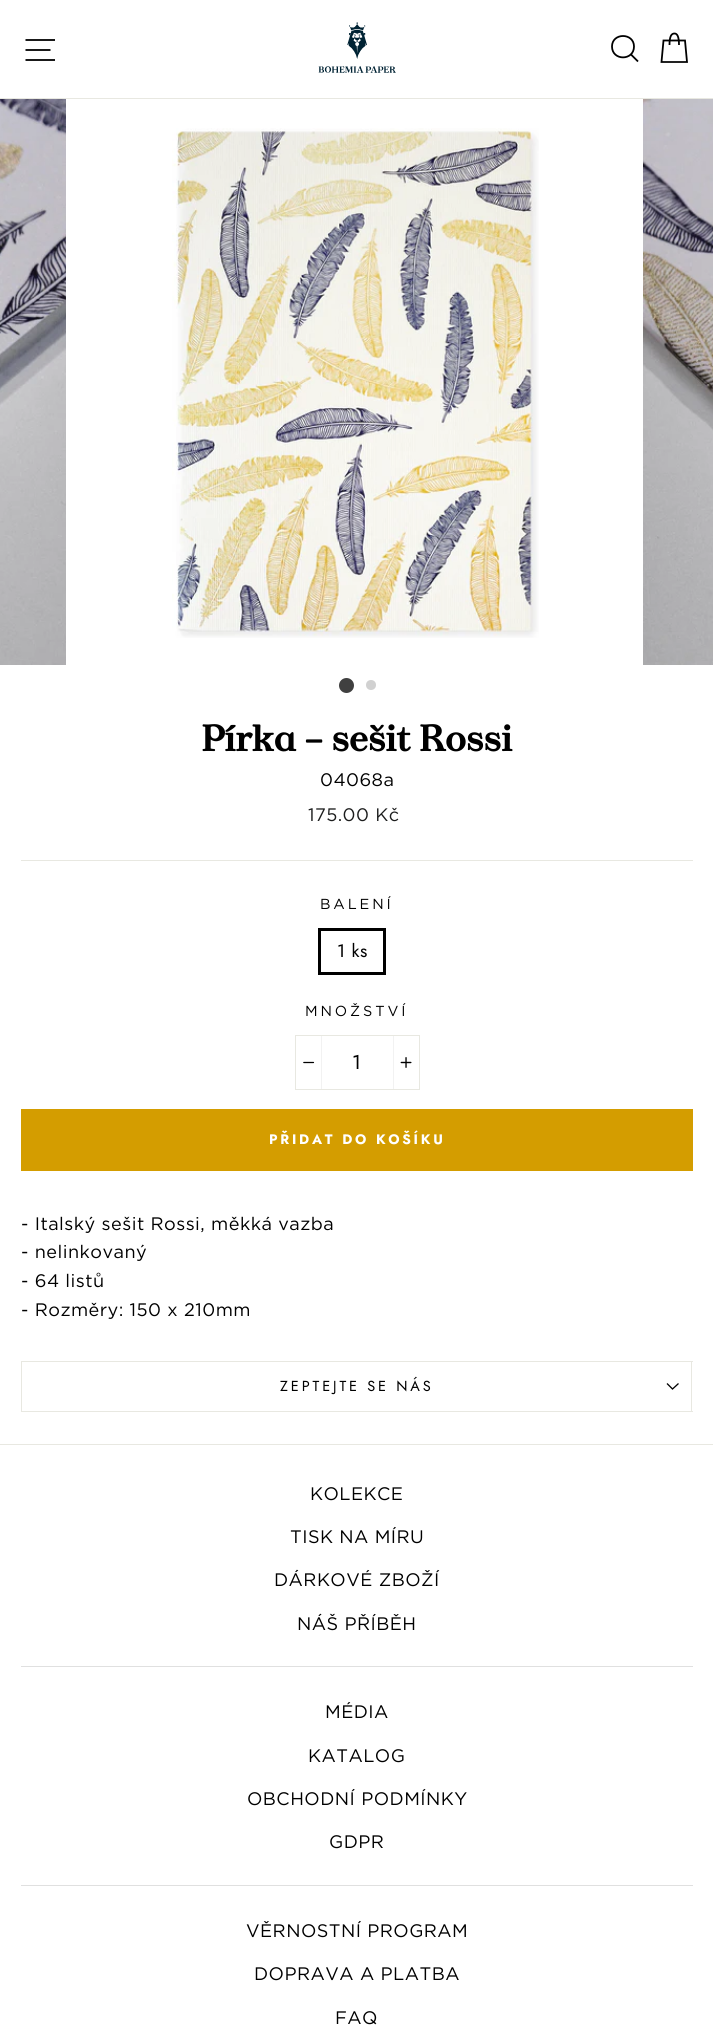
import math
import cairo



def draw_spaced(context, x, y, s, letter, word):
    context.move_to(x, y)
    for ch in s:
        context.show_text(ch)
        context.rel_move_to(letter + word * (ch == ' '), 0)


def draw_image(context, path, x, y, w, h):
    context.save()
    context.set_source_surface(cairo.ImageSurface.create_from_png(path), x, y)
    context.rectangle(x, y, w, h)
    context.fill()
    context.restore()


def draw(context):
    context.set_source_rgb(1, 1, 1)
    context.paint()
    context.set_source_rgb(232 / 255, 232 / 255, 225 / 255)
    context.rectangle(0, 98, 713, 1)
    context.fill()
    context.new_path()
    context.move_to(25.5, 40)
    context.line_to(55, 40)
    context.move_to(25.5, 50)
    context.line_to(50.5, 50)
    context.move_to(25.5, 60)
    context.line_to(55, 60)
    context.set_source_rgb(0, 0, 0)
    context.set_line_width(1.8)
    context.stroke()
    draw_image(context, "images/1.png", 318, 22, 78, 51)
    context.new_path()
    context.move_to(634, 46.5)
    context.curve_to(634, 61, 612, 61, 612, 46.5)
    context.curve_to(612, 32.5, 634, 32.5, 634, 46.5)
    context.close_path()
    context.move_to(638, 61.5)
    context.line_to(631, 54.5)
    context.stroke()
    context.new_path()
    context.move_to(669.5, 45)
    context.curve_to(669.5, 36, 671.5, 33.5, 674.5, 33.5)
    context.curve_to(677, 33.5, 679, 36, 679, 45)
    context.move_to(663.5, 40.5)
    context.line_to(685, 40.5)
    context.line_to(687, 62)
    context.line_to(661.5, 62)
    context.close_path()
    context.stroke()
    draw_image(context, "images/2.png", 0, 99, 66, 566)
    draw_image(context, "images/3.png", 172, 128, 367, 510)
    draw_image(context, "images/4.png", 643, 99, 70, 566)
    context.set_source_rgb(64 / 255, 64 / 255, 64 / 255)
    context.arc(346.5, 685.5, 7.5, 0, 2 * math.pi)
    context.fill()
    context.set_source_rgb(209 / 255, 209 / 255, 209 / 255)
    context.arc(371, 685, 5, 0, 2 * math.pi)
    context.fill()
    context.set_source_rgb(232 / 255, 232 / 255, 225 / 255)
    context.rectangle(21, 860, 672, 1)
    context.fill()
    context.rectangle(319.5, 929.5, 65, 44)
    context.set_source_rgb(0, 0, 0)
    context.set_line_width(3)
    context.stroke()
    context.rectangle(295.5, 1035.5, 124, 54)
    context.set_source_rgb(232 / 255, 232 / 255, 225 / 255)
    context.set_line_width(1)
    context.stroke()
    context.set_source_rgb(242 / 255, 242 / 255, 242 / 255)
    context.rectangle(321, 1036, 1, 53)
    context.fill()
    draw_image(context, "images/5.png", 303, 1061, 12, 3)
    context.rectangle(393, 1036, 1, 53)
    context.fill()
    draw_image(context, "images/6.png", 400, 1057, 12, 11)
    context.set_source_rgb(212 / 255, 157 / 255, 0)
    context.rectangle(21, 1109, 672, 62)
    context.fill()
    context.set_source_rgb(232 / 255, 232 / 255, 225 / 255)
    context.rectangle(21, 1411, 672, 1)
    context.fill()
    context.rectangle(21, 1361, 672, 1)
    context.fill()
    context.rectangle(691, 1361, 1, 50)
    context.fill()
    context.rectangle(21, 1361, 1, 50)
    context.fill()
    context.new_path()
    context.move_to(667, 1383.5)
    context.line_to(672.5, 1389)
    context.line_to(678.5, 1383.5)
    context.set_source_rgb(0, 0, 0)
    context.set_line_width(1.3)
    context.stroke()
    context.set_source_rgb(232 / 255, 232 / 255, 225 / 255)
    context.rectangle(0, 1444, 713, 1)
    context.fill()
    context.set_source_rgb(224 / 255, 224 / 255, 224 / 255)
    context.rectangle(21, 1666, 672, 1)
    context.fill()
    context.rectangle(21, 1885, 672, 1)
    context.fill()
    context.select_font_face("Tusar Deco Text", cairo.FontSlant.NORMAL, cairo.FontWeight.BOLD)
    context.set_font_size(36.5)
    context.set_source_rgb(0, 0, 0)
    context.move_to(201, 751)
    context.show_text("Pírka – sešit Rossi")
    context.select_font_face("Gotham")
    context.set_font_size(18.1)
    draw_spaced(context, 320, 786, "04068a", 0.45, 0)
    context.set_source_rgb(28 / 255, 29 / 255, 29 / 255)
    draw_spaced(context, 308, 821, "175.00 Kč", 0.45, 0)
    context.set_font_size(14.5)
    context.set_source_rgb(0, 0, 0)
    draw_spaced(context, 320, 909, "BALENÍ", 2.9, 0)
    context.select_font_face("Jost")
    context.set_font_size(18.1)
    draw_spaced(context, 337, 957, "1 ks", 0.45, 0)
    context.select_font_face("Gotham")
    context.set_font_size(14.5)
    draw_spaced(context, 305, 1016, "MNOŽSTVÍ", 2.9, 0)
    context.select_font_face("Jost")
    context.set_font_size(20)
    context.move_to(352, 1069)
    context.show_text("1")
    context.select_font_face("Jost", cairo.FontSlant.NORMAL, cairo.FontWeight.BOLD)
    context.set_font_size(13.75)
    context.set_source_rgb(1, 1, 1)
    draw_spaced(context, 269, 1144, "PŘIDAT DO KOŠÍKU", 2.75, 0)
    context.select_font_face("Gotham")
    context.set_font_size(18.1)
    context.set_source_rgb(0, 0, 0)
    draw_spaced(context, 21, 1230, "- Italský sešit Rossi, měkká vazba", 0.45, 0)
    draw_spaced(context, 21, 1258, "- nelinkovaný", 0.45, 0)
    draw_spaced(context, 21, 1287, "- 64 listů", 0.45, 0)
    draw_spaced(context, 21, 1316, "- Rozměry: 150 x 210mm", 0.45, 0)
    context.select_font_face("Jost")
    context.set_font_size(14.5)
    draw_spaced(context, 280, 1391, "ZEPTEJTE SE NÁS", 2.9, 0)
    context.select_font_face("Gotham")
    context.set_font_size(18.1)
    draw_spaced(context, 310, 1500, "KOLEKCE", 0.45, 0)
    draw_spaced(context, 290, 1543, "TISK NA MÍRU", 0.45, 0)
    draw_spaced(context, 274, 1586, "DÁRKOVÉ ZBOŽÍ", 0.45, 0)
    draw_spaced(context, 297, 1630, "NÁŠ PŘÍBĚH", 0.45, 0)
    draw_spaced(context, 325, 1718, "MÉDIA", 0.45, 0)
    draw_spaced(context, 308, 1762, "KATALOG", 0.45, 0)
    draw_spaced(context, 247, 1805, "OBCHODNÍ PODMÍNKY", 0.45, 0)
    draw_spaced(context, 329, 1848, "GDPR", 0.45, 0)
    draw_spaced(context, 246, 1937, "VĚRNOSTNÍ PROGRAM", 0.45, 0)
    draw_spaced(context, 254, 1980, "DOPRAVA A PLATBA", 0.45, 0)
    draw_spaced(context, 335, 2024, "FAQ", 0.45, 0)


surface = cairo.ImageSurface(cairo.Format.RGB24, 713, 2034)
context = cairo.Context(surface)
options = cairo.FontOptions()
options.set_hint_metrics(cairo.HintMetrics.OFF)
options.set_hint_style(cairo.HintStyle.NONE)
context.set_font_options(options)
context.set_miter_limit(4)
draw(context)
surface.write_to_png("out.png")
